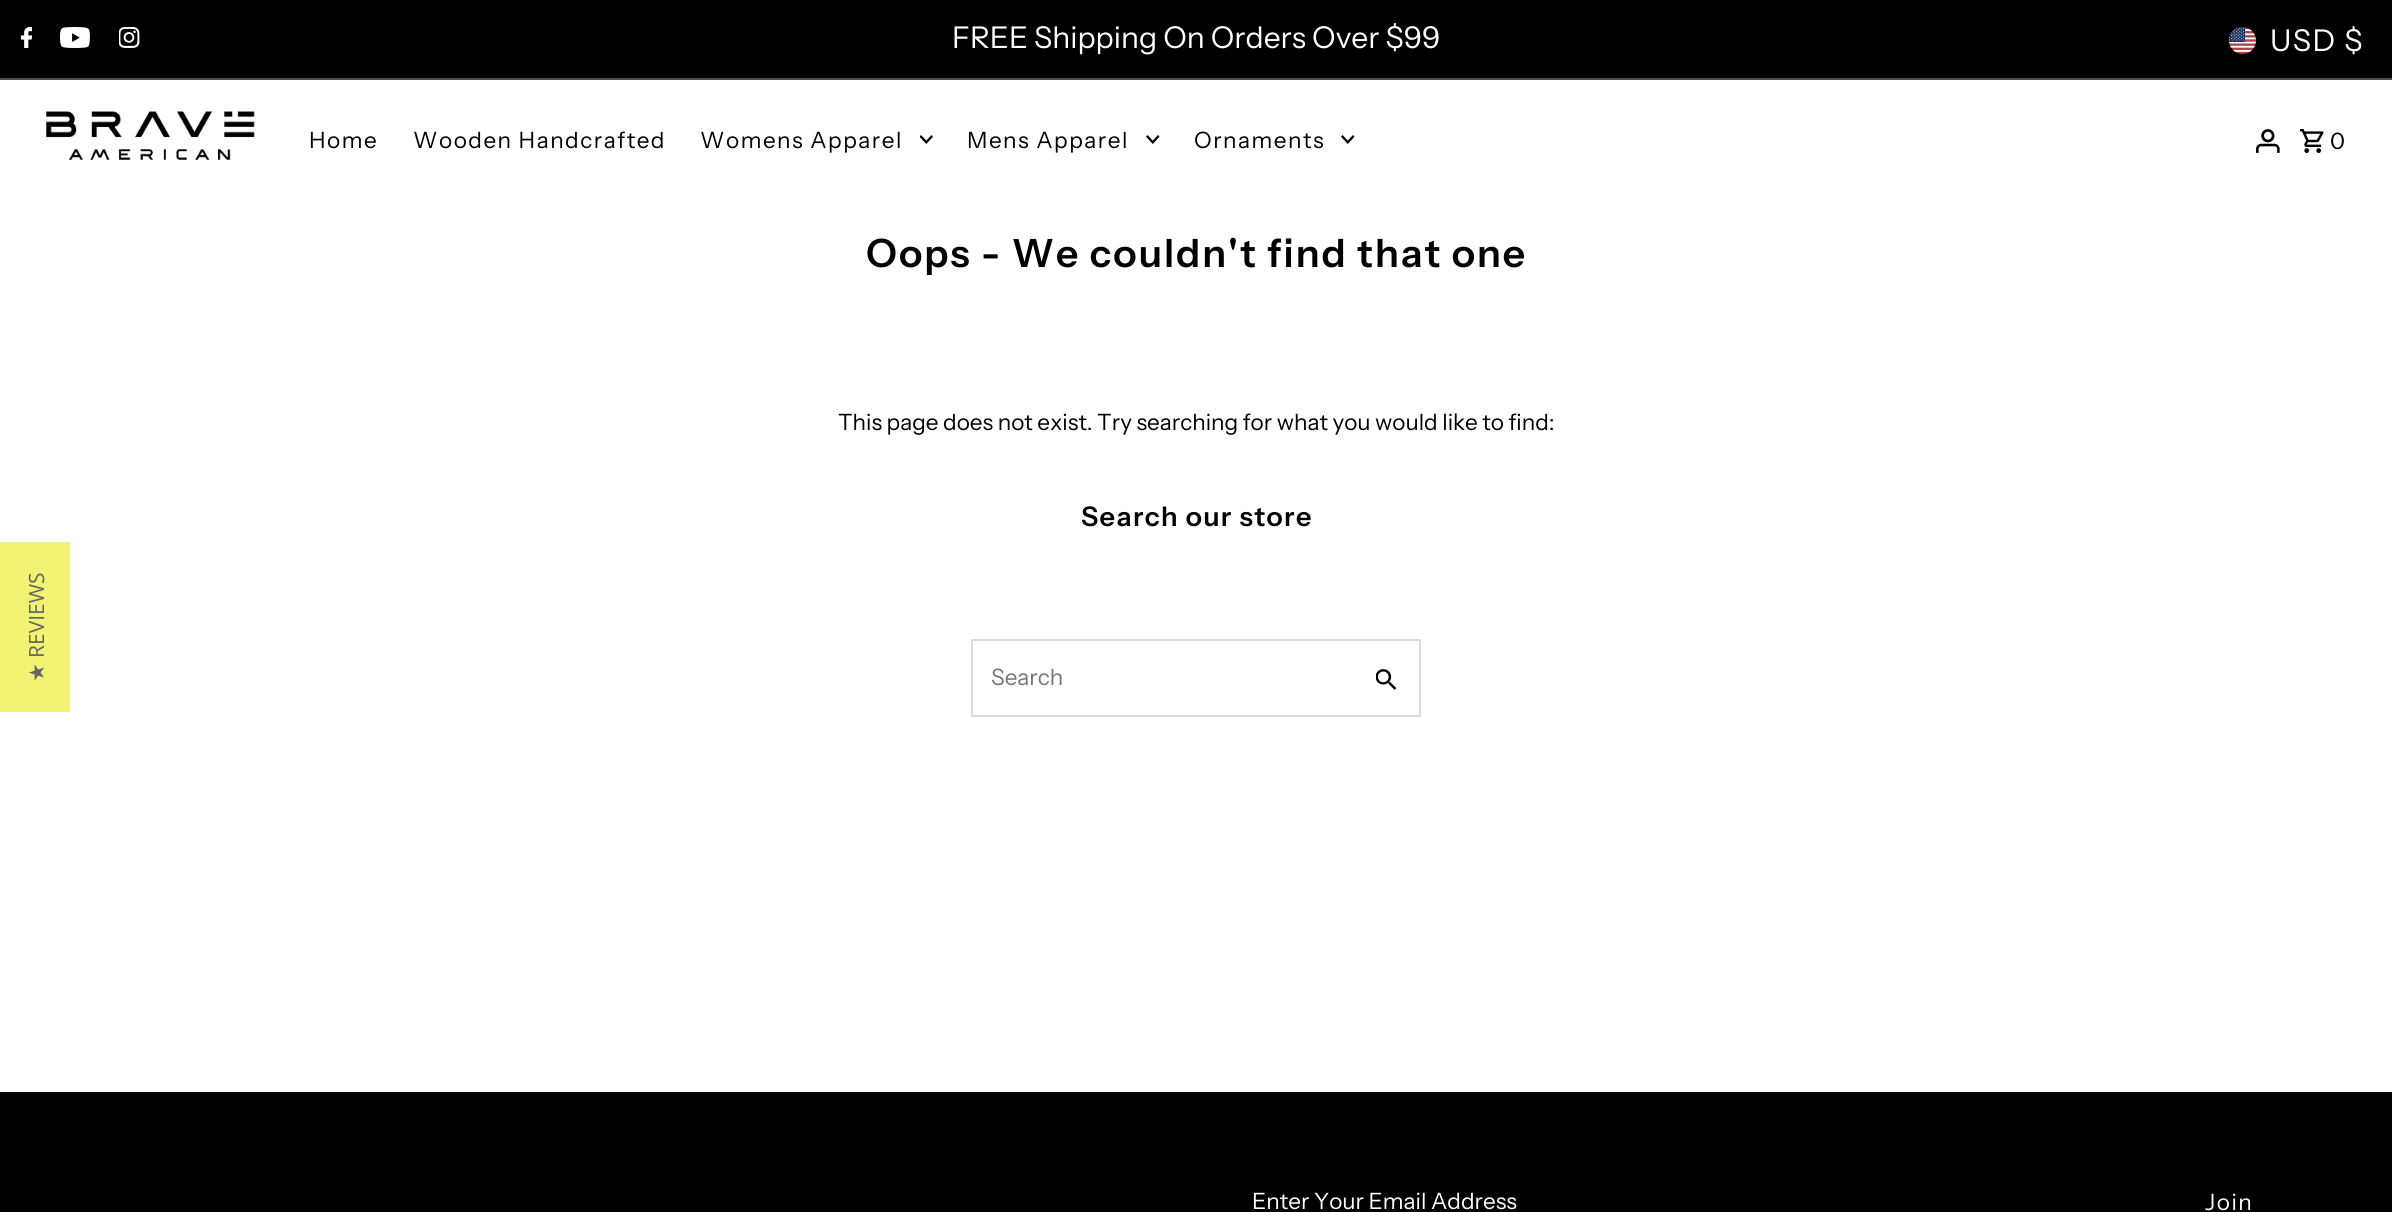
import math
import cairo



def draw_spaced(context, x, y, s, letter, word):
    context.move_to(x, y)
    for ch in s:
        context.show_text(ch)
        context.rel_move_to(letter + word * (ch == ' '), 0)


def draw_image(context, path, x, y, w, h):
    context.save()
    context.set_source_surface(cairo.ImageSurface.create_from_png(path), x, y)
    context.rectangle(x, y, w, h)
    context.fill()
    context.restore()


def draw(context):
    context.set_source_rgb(1, 1, 1)
    context.paint()
    context.set_source_rgb(242 / 255, 242 / 255, 115 / 255)
    context.rectangle(0, 542, 70, 170)
    context.fill()
    context.set_source_rgb(77 / 255, 77 / 255, 77 / 255)
    context.rectangle(0, 78, 2392, 2)
    context.fill()
    context.set_source_rgb(0, 0, 0)
    context.rectangle(0, 0, 2392, 78)
    context.fill()
    draw_image(context, "images/1.png", 21, 27, 11, 21)
    draw_image(context, "images/2.png", 60, 27, 30, 21)
    draw_image(context, "images/3.png", 119, 27, 21, 21)
    draw_image(context, "images/4.png", 2229, 27, 27, 27)
    draw_image(context, "images/5.png", 46, 111, 209, 49)
    draw_image(context, "images/6.png", 920, 135, 13, 9)
    draw_image(context, "images/7.png", 1146, 135, 14, 9)
    draw_image(context, "images/7.png", 1341, 135, 14, 9)
    draw_image(context, "images/8.png", 2256, 129, 24, 24)
    draw_image(context, "images/9.png", 2300, 129, 24, 24)
    context.rectangle(972, 640, 448, 76)
    context.set_source_rgb(221 / 255, 221 / 255, 221 / 255)
    context.stroke()
    draw_image(context, "images/10.png", 1376, 669, 21, 21)
    context.set_source_rgb(0, 0, 0)
    context.rectangle(0, 1092, 2392, 120)
    context.fill()
    context.select_font_face("Open Sans")
    context.set_font_size(21)
    context.set_source_rgb(103 / 255, 102 / 255, 103 / 255)
    context.save()
    context.translate(44, 658)
    context.rotate(-90 * math.pi / 180)
    context.move_to(0, 0)
    context.show_text("REVIEWS")
    context.restore()
    context.select_font_face("DejaVu Sans")
    context.save()
    context.translate(44, 682)
    context.rotate(-90 * math.pi / 180)
    context.move_to(0, 0)
    context.show_text("★")
    context.restore()
    context.select_font_face("Instrument Sans")
    context.set_font_size(30)
    context.set_source_rgb(1, 1, 1)
    context.move_to(952, 48)
    context.show_text("FREE Shipping On Orders Over $99")
    draw_spaced(context, 2270, 51, "USD $", 1.5, 0)
    context.set_font_size(22.5)
    context.set_source_rgb(0, 0, 0)
    draw_spaced(context, 309, 148, "Home", 1.5, 0)
    draw_spaced(context, 413, 148, "Wooden Handcrafted", 1.5, 0)
    draw_spaced(context, 700, 148, "Womens Apparel", 1.5, 0)
    draw_spaced(context, 967, 148, "Mens Apparel", 1.5, 0)
    draw_spaced(context, 1194, 148, "Ornaments", 1.5, 0)
    draw_spaced(context, 2330, 149, "0", 1.5, 0)
    context.select_font_face("Instrument Sans SemiBold")
    context.set_font_size(39)
    draw_spaced(context, 866, 267, "Oops - We couldn't find that one", 1.95, 0)
    context.select_font_face("Instrument Sans")
    context.set_font_size(22.5)
    context.move_to(838, 430)
    context.show_text("This page does not exist. Try searching for what you would like to find:")
    context.select_font_face("Instrument Sans SemiBold")
    context.set_font_size(27)
    draw_spaced(context, 1081, 526, "Search our store", 1.4, 0)
    context.select_font_face("Instrument Sans")
    context.set_font_size(22.5)
    context.set_source_rgb(117 / 255, 117 / 255, 117 / 255)
    context.move_to(991, 685)
    context.show_text("Search")
    context.set_source_rgb(1, 1, 1)
    context.move_to(1252, 1209)
    context.show_text("Enter Your Email Address")
    draw_spaced(context, 2205, 1210, "Join", 1.5, 0)


surface = cairo.ImageSurface(cairo.Format.RGB24, 2392, 1212)
context = cairo.Context(surface)
options = cairo.FontOptions()
options.set_hint_metrics(cairo.HintMetrics.OFF)
options.set_hint_style(cairo.HintStyle.NONE)
context.set_font_options(options)
context.set_miter_limit(4)
draw(context)
surface.write_to_png("out.png")
